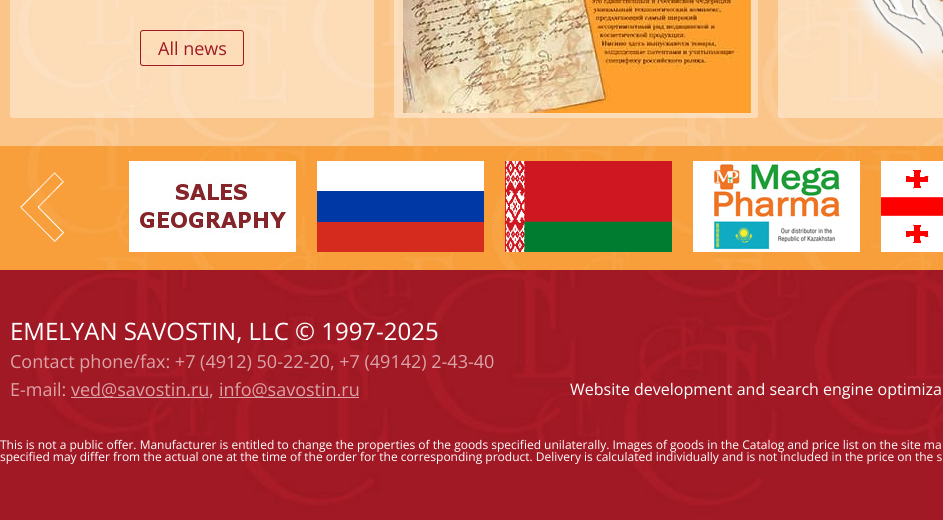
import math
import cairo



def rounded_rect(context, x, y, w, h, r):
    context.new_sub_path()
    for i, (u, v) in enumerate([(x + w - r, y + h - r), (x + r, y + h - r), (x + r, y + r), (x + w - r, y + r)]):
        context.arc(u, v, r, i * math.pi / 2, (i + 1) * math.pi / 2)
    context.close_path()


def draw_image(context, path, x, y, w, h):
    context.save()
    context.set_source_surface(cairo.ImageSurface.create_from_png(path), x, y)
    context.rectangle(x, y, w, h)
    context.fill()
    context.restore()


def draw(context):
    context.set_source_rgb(1, 1, 1)
    context.paint()
    draw_image(context, "images/1.png", 0, 0, 943, 146)
    context.set_source_rgba(1, 1, 1, 0.4)
    rounded_rect(context, 10, -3, 364, 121, 3)
    context.fill()
    rounded_rect(context, 140.5, 30.5, 103, 35, 2.5)
    context.set_source_rgb(159 / 255, 25 / 255, 35 / 255)
    context.set_line_width(1)
    context.stroke()
    context.set_source_rgba(1, 1, 1, 0.4)
    rounded_rect(context, 394, -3, 364, 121, 3)
    context.fill()
    draw_image(context, "images/2.png", 403, 0, 348, 113)
    rounded_rect(context, 778, -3, 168, 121, 3)
    context.fill()
    draw_image(context, "images/3.png", 848, 0, 95, 74)
    draw_image(context, "images/4.png", 0, 146, 943, 124)
    draw_image(context, "images/5.png", 20, 172, 44, 70)
    draw_image(context, "images/6.png", 129, 161, 167, 91)
    draw_image(context, "images/7.png", 317, 161, 167, 91)
    draw_image(context, "images/8.png", 505, 161, 167, 91)
    draw_image(context, "images/9.png", 693, 161, 167, 91)
    draw_image(context, "images/10.png", 881, 161, 62, 91)
    draw_image(context, "images/11.png", 0, 270, 943, 250)
    context.set_source_rgba(1, 1, 1, 0.6)
    context.rectangle(71, 397, 138, 1)
    context.fill()
    context.rectangle(219, 397, 140, 1)
    context.fill()
    context.select_font_face("Open Sans")
    context.set_font_size(18)
    context.set_source_rgb(159 / 255, 25 / 255, 35 / 255)
    context.move_to(158, 55)
    context.show_text("All news")
    context.set_font_size(24)
    context.set_source_rgb(1, 1, 1)
    context.move_to(10, 340)
    context.show_text("EMELYAN SAVOSTIN, LLC © 1997-2025")
    context.set_font_size(18)
    context.set_source_rgb(218 / 255, 163 / 255, 168 / 255)
    context.move_to(10, 368)
    context.show_text("Contact phone/fax: +7 (4912) 50-22-20, +7 (49142) 2-43-40")
    context.move_to(10, 396)
    context.show_text("E-mail:")
    context.move_to(71, 396)
    context.show_text("ved@savostin.ru")
    context.move_to(209, 396)
    context.show_text(",")
    context.move_to(219, 396)
    context.show_text("info@savostin.ru")
    context.set_font_size(16)
    context.set_source_rgb(1, 1, 1)
    context.move_to(570, 395)
    context.show_text("Website development and search engine optimiza")
    context.set_font_size(12)
    context.move_to(0, 449)
    context.show_text("This is not a public offer. Manufacturer is entitled to change the properties of the goods specified unilaterally. Images of goods in the Catalog and price list on the site ma")
    context.move_to(0, 461)
    context.show_text("specified may differ from the actual one at the time of the order for the corresponding product. Delivery is calculated individually and is not included in the price on the s")


surface = cairo.ImageSurface(cairo.Format.RGB24, 943, 520)
context = cairo.Context(surface)
options = cairo.FontOptions()
options.set_hint_metrics(cairo.HintMetrics.OFF)
options.set_hint_style(cairo.HintStyle.NONE)
context.set_font_options(options)
context.set_miter_limit(4)
draw(context)
surface.write_to_png("out.png")
